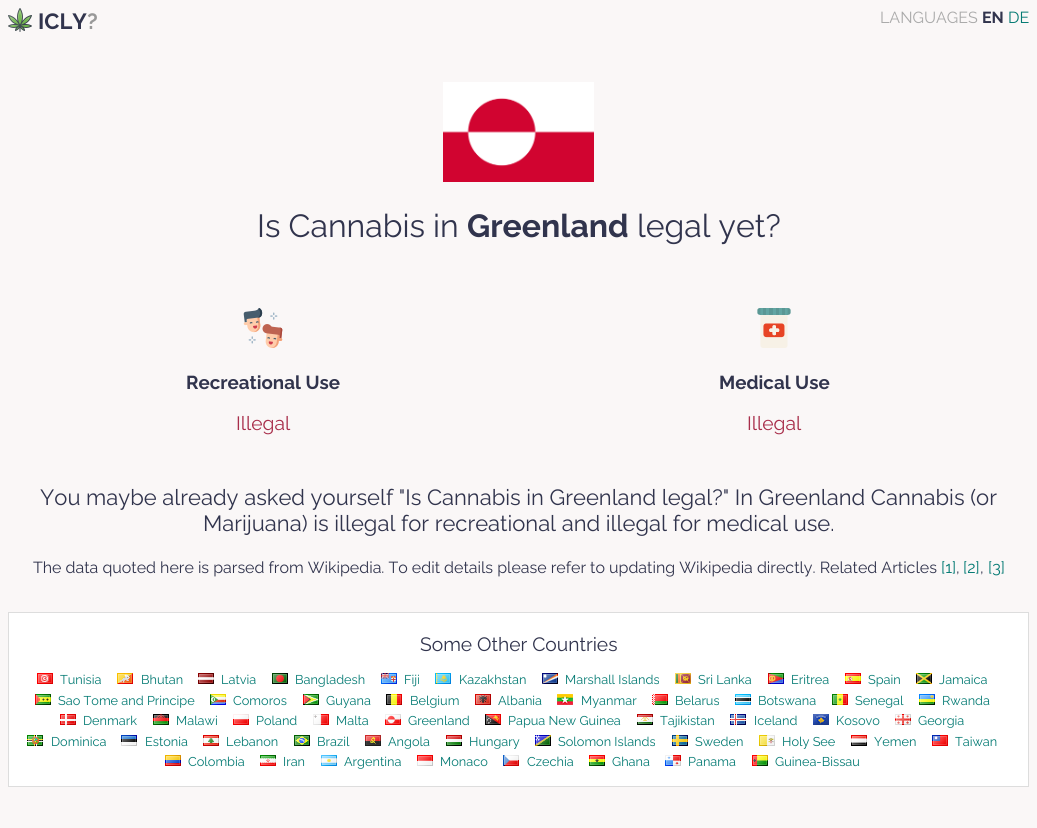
import math
import cairo



def draw_image(context, path, x, y, w, h):
    context.save()
    context.set_source_surface(cairo.ImageSurface.create_from_png(path), x, y)
    context.rectangle(x, y, w, h)
    context.fill()
    context.restore()


def draw(context):
    context.set_source_rgb(250 / 255, 247 / 255, 247 / 255)
    context.paint()
    draw_image(context, "images/1.png", 8, 8, 24, 24)
    draw_image(context, "images/2.png", 443, 82, 151, 100)
    draw_image(context, "images/3.png", 243, 308, 40, 40)
    draw_image(context, "images/4.png", 757, 308, 34, 40)
    context.set_source_rgb(1, 1, 1)
    context.rectangle(8.5, 612.5, 1020, 174)
    context.fill_preserve()
    context.set_source_rgb(221 / 255, 221 / 255, 221 / 255)
    context.set_line_width(1)
    context.stroke()
    draw_image(context, "images/5.png", 37, 673, 16, 11)
    draw_image(context, "images/6.png", 117, 673, 16, 11)
    draw_image(context, "images/7.png", 198, 673, 16, 11)
    draw_image(context, "images/8.png", 272, 673, 16, 11)
    draw_image(context, "images/9.png", 381, 673, 16, 11)
    draw_image(context, "images/10.png", 435, 673, 16, 11)
    draw_image(context, "images/11.png", 542, 673, 16, 11)
    draw_image(context, "images/12.png", 675, 673, 16, 11)
    draw_image(context, "images/13.png", 768, 673, 16, 11)
    draw_image(context, "images/14.png", 845, 673, 16, 11)
    draw_image(context, "images/15.png", 916, 673, 16, 11)
    draw_image(context, "images/16.png", 35, 694, 16, 11)
    draw_image(context, "images/17.png", 210, 694, 16, 11)
    draw_image(context, "images/18.png", 303, 694, 16, 11)
    draw_image(context, "images/19.png", 386, 694, 16, 11)
    draw_image(context, "images/20.png", 475, 694, 16, 11)
    draw_image(context, "images/21.png", 557, 694, 16, 11)
    draw_image(context, "images/22.png", 652, 694, 16, 11)
    draw_image(context, "images/23.png", 735, 694, 16, 11)
    draw_image(context, "images/24.png", 832, 694, 16, 11)
    draw_image(context, "images/25.png", 919, 694, 16, 11)
    draw_image(context, "images/26.png", 60, 714, 16, 11)
    draw_image(context, "images/27.png", 153, 714, 16, 11)
    draw_image(context, "images/28.png", 233, 714, 16, 11)
    draw_image(context, "images/29.png", 313, 714, 16, 11)
    draw_image(context, "images/30.png", 385, 714, 16, 11)
    draw_image(context, "images/31.png", 485, 714, 16, 11)
    draw_image(context, "images/32.png", 637, 714, 16, 11)
    draw_image(context, "images/33.png", 730, 714, 16, 11)
    draw_image(context, "images/34.png", 813, 714, 16, 11)
    draw_image(context, "images/35.png", 895, 714, 16, 11)
    draw_image(context, "images/36.png", 27, 735, 16, 11)
    draw_image(context, "images/37.png", 121, 735, 16, 11)
    draw_image(context, "images/38.png", 203, 735, 16, 11)
    draw_image(context, "images/39.png", 294, 735, 16, 11)
    draw_image(context, "images/40.png", 365, 735, 16, 11)
    draw_image(context, "images/41.png", 446, 735, 16, 11)
    draw_image(context, "images/42.png", 535, 735, 16, 11)
    draw_image(context, "images/43.png", 672, 735, 16, 11)
    draw_image(context, "images/44.png", 759, 735, 16, 11)
    draw_image(context, "images/45.png", 851, 735, 16, 11)
    draw_image(context, "images/46.png", 932, 735, 16, 11)
    draw_image(context, "images/47.png", 165, 755, 16, 11)
    draw_image(context, "images/48.png", 260, 755, 16, 11)
    draw_image(context, "images/49.png", 321, 755, 16, 11)
    draw_image(context, "images/50.png", 417, 755, 16, 11)
    draw_image(context, "images/51.png", 503, 755, 16, 11)
    draw_image(context, "images/52.png", 589, 755, 16, 11)
    draw_image(context, "images/53.png", 665, 755, 16, 11)
    draw_image(context, "images/54.png", 752, 755, 16, 11)
    context.select_font_face("Raleway", cairo.FontSlant.NORMAL, cairo.FontWeight.BOLD)
    context.set_font_size(22)
    context.set_source_rgb(49 / 255, 52 / 255, 77 / 255)
    context.move_to(38, 29)
    context.show_text("ICLY")
    context.set_source_rgb(153 / 255, 153 / 255, 153 / 255)
    context.move_to(87, 29)
    context.show_text("?")
    context.select_font_face("Raleway")
    context.set_font_size(16)
    context.set_source_rgb(170 / 255, 170 / 255, 170 / 255)
    context.move_to(880, 23)
    context.show_text("LANGUAGES")
    context.select_font_face("Raleway", cairo.FontSlant.NORMAL, cairo.FontWeight.BOLD)
    context.set_source_rgb(49 / 255, 52 / 255, 77 / 255)
    context.move_to(982, 23)
    context.show_text("EN")
    context.select_font_face("Raleway")
    context.set_source_rgb(4 / 255, 122 / 255, 115 / 255)
    context.move_to(1008, 23)
    context.show_text("DE")
    context.set_font_size(32)
    context.set_source_rgb(49 / 255, 52 / 255, 77 / 255)
    context.move_to(257, 237)
    context.show_text("Is Cannabis in")
    context.select_font_face("Raleway", cairo.FontSlant.NORMAL, cairo.FontWeight.BOLD)
    context.move_to(467, 237)
    context.show_text("Greenland")
    context.select_font_face("Raleway")
    context.move_to(637, 237)
    context.show_text("legal yet?")
    context.select_font_face("Raleway", cairo.FontSlant.NORMAL, cairo.FontWeight.BOLD)
    context.set_font_size(18.75)
    context.move_to(186, 389)
    context.show_text("Recreational Use")
    context.select_font_face("Raleway")
    context.set_font_size(19.25)
    context.set_source_rgb(168 / 255, 45 / 255, 74 / 255)
    context.move_to(236, 430)
    context.show_text("Illegal")
    context.select_font_face("Raleway", cairo.FontSlant.NORMAL, cairo.FontWeight.BOLD)
    context.set_font_size(18.75)
    context.set_source_rgb(49 / 255, 52 / 255, 77 / 255)
    context.move_to(719, 389)
    context.show_text("Medical Use")
    context.select_font_face("Raleway")
    context.set_font_size(19.25)
    context.set_source_rgb(168 / 255, 45 / 255, 74 / 255)
    context.move_to(747, 430)
    context.show_text("Illegal")
    context.set_font_size(22)
    context.set_source_rgb(49 / 255, 52 / 255, 77 / 255)
    context.move_to(40, 505)
    context.show_text("You maybe already asked yourself \"Is Cannabis in Greenland legal?\" In Greenland Cannabis (or")
    context.move_to(203, 531)
    context.show_text("Marijuana) is illegal for recreational and illegal for medical use.")
    context.set_font_size(16)
    context.move_to(33, 573)
    context.show_text("The data quoted here is parsed from Wikipedia. To edit details please refer to updating Wikipedia directly. Related Articles")
    context.set_source_rgb(4 / 255, 122 / 255, 115 / 255)
    context.move_to(941, 573)
    context.show_text("[1]")
    context.set_source_rgb(49 / 255, 52 / 255, 77 / 255)
    context.move_to(956, 573)
    context.show_text(",")
    context.set_source_rgb(4 / 255, 122 / 255, 115 / 255)
    context.move_to(963, 573)
    context.show_text("[2]")
    context.set_source_rgb(49 / 255, 52 / 255, 77 / 255)
    context.move_to(980, 573)
    context.show_text(",")
    context.set_source_rgb(4 / 255, 122 / 255, 115 / 255)
    context.move_to(988, 573)
    context.show_text("[3]")
    context.set_font_size(19.25)
    context.set_source_rgb(49 / 255, 52 / 255, 77 / 255)
    context.move_to(420, 651)
    context.show_text("Some Other Countries")
    context.set_font_size(12.75)
    context.set_source_rgb(4 / 255, 122 / 255, 115 / 255)
    context.move_to(60, 684)
    context.show_text("Tunisia")
    context.move_to(141, 684)
    context.show_text("Bhutan")
    context.move_to(221, 684)
    context.show_text("Latvia")
    context.move_to(295, 684)
    context.show_text("Bangladesh")
    context.move_to(404, 684)
    context.show_text("Fiji")
    context.move_to(459, 684)
    context.show_text("Kazakhstan")
    context.move_to(565, 684)
    context.show_text("Marshall Islands")
    context.move_to(698, 684)
    context.show_text("Sri Lanka")
    context.move_to(791, 684)
    context.show_text("Eritrea")
    context.move_to(868, 684)
    context.show_text("Spain")
    context.move_to(939, 684)
    context.show_text("Jamaica")
    context.move_to(58, 705)
    context.show_text("Sao Tome and Principe")
    context.move_to(233, 705)
    context.show_text("Comoros")
    context.move_to(326, 705)
    context.show_text("Guyana")
    context.move_to(410, 705)
    context.show_text("Belgium")
    context.move_to(498, 705)
    context.show_text("Albania")
    context.move_to(581, 705)
    context.show_text("Myanmar")
    context.move_to(675, 705)
    context.show_text("Belarus")
    context.move_to(758, 705)
    context.show_text("Botswana")
    context.move_to(855, 705)
    context.show_text("Senegal")
    context.move_to(942, 705)
    context.show_text("Rwanda")
    context.move_to(83, 725)
    context.show_text("Denmark")
    context.move_to(176, 725)
    context.show_text("Malawi")
    context.move_to(256, 725)
    context.show_text("Poland")
    context.move_to(336, 725)
    context.show_text("Malta")
    context.move_to(408, 725)
    context.show_text("Greenland")
    context.move_to(508, 725)
    context.show_text("Papua New Guinea")
    context.move_to(660, 725)
    context.show_text("Tajikistan")
    context.move_to(754, 725)
    context.show_text("Iceland")
    context.move_to(836, 725)
    context.show_text("Kosovo")
    context.move_to(918, 725)
    context.show_text("Georgia")
    context.move_to(51, 746)
    context.show_text("Dominica")
    context.move_to(145, 746)
    context.show_text("Estonia")
    context.move_to(226, 746)
    context.show_text("Lebanon")
    context.move_to(317, 746)
    context.show_text("Brazil")
    context.move_to(388, 746)
    context.show_text("Angola")
    context.move_to(469, 746)
    context.show_text("Hungary")
    context.move_to(558, 746)
    context.show_text("Solomon Islands")
    context.move_to(695, 746)
    context.show_text("Sweden")
    context.move_to(782, 746)
    context.show_text("Holy See")
    context.move_to(874, 746)
    context.show_text("Yemen")
    context.move_to(955, 746)
    context.show_text("Taiwan")
    context.move_to(188, 766)
    context.show_text("Colombia")
    context.move_to(283, 766)
    context.show_text("Iran")
    context.move_to(344, 766)
    context.show_text("Argentina")
    context.move_to(440, 766)
    context.show_text("Monaco")
    context.move_to(527, 766)
    context.show_text("Czechia")
    context.move_to(612, 766)
    context.show_text("Ghana")
    context.move_to(688, 766)
    context.show_text("Panama")
    context.move_to(775, 766)
    context.show_text("Guinea-Bissau")


surface = cairo.ImageSurface(cairo.Format.RGB24, 1037, 828)
context = cairo.Context(surface)
options = cairo.FontOptions()
options.set_hint_metrics(cairo.HintMetrics.OFF)
options.set_hint_style(cairo.HintStyle.NONE)
context.set_font_options(options)
context.set_miter_limit(4)
draw(context)
surface.write_to_png("out.png")
